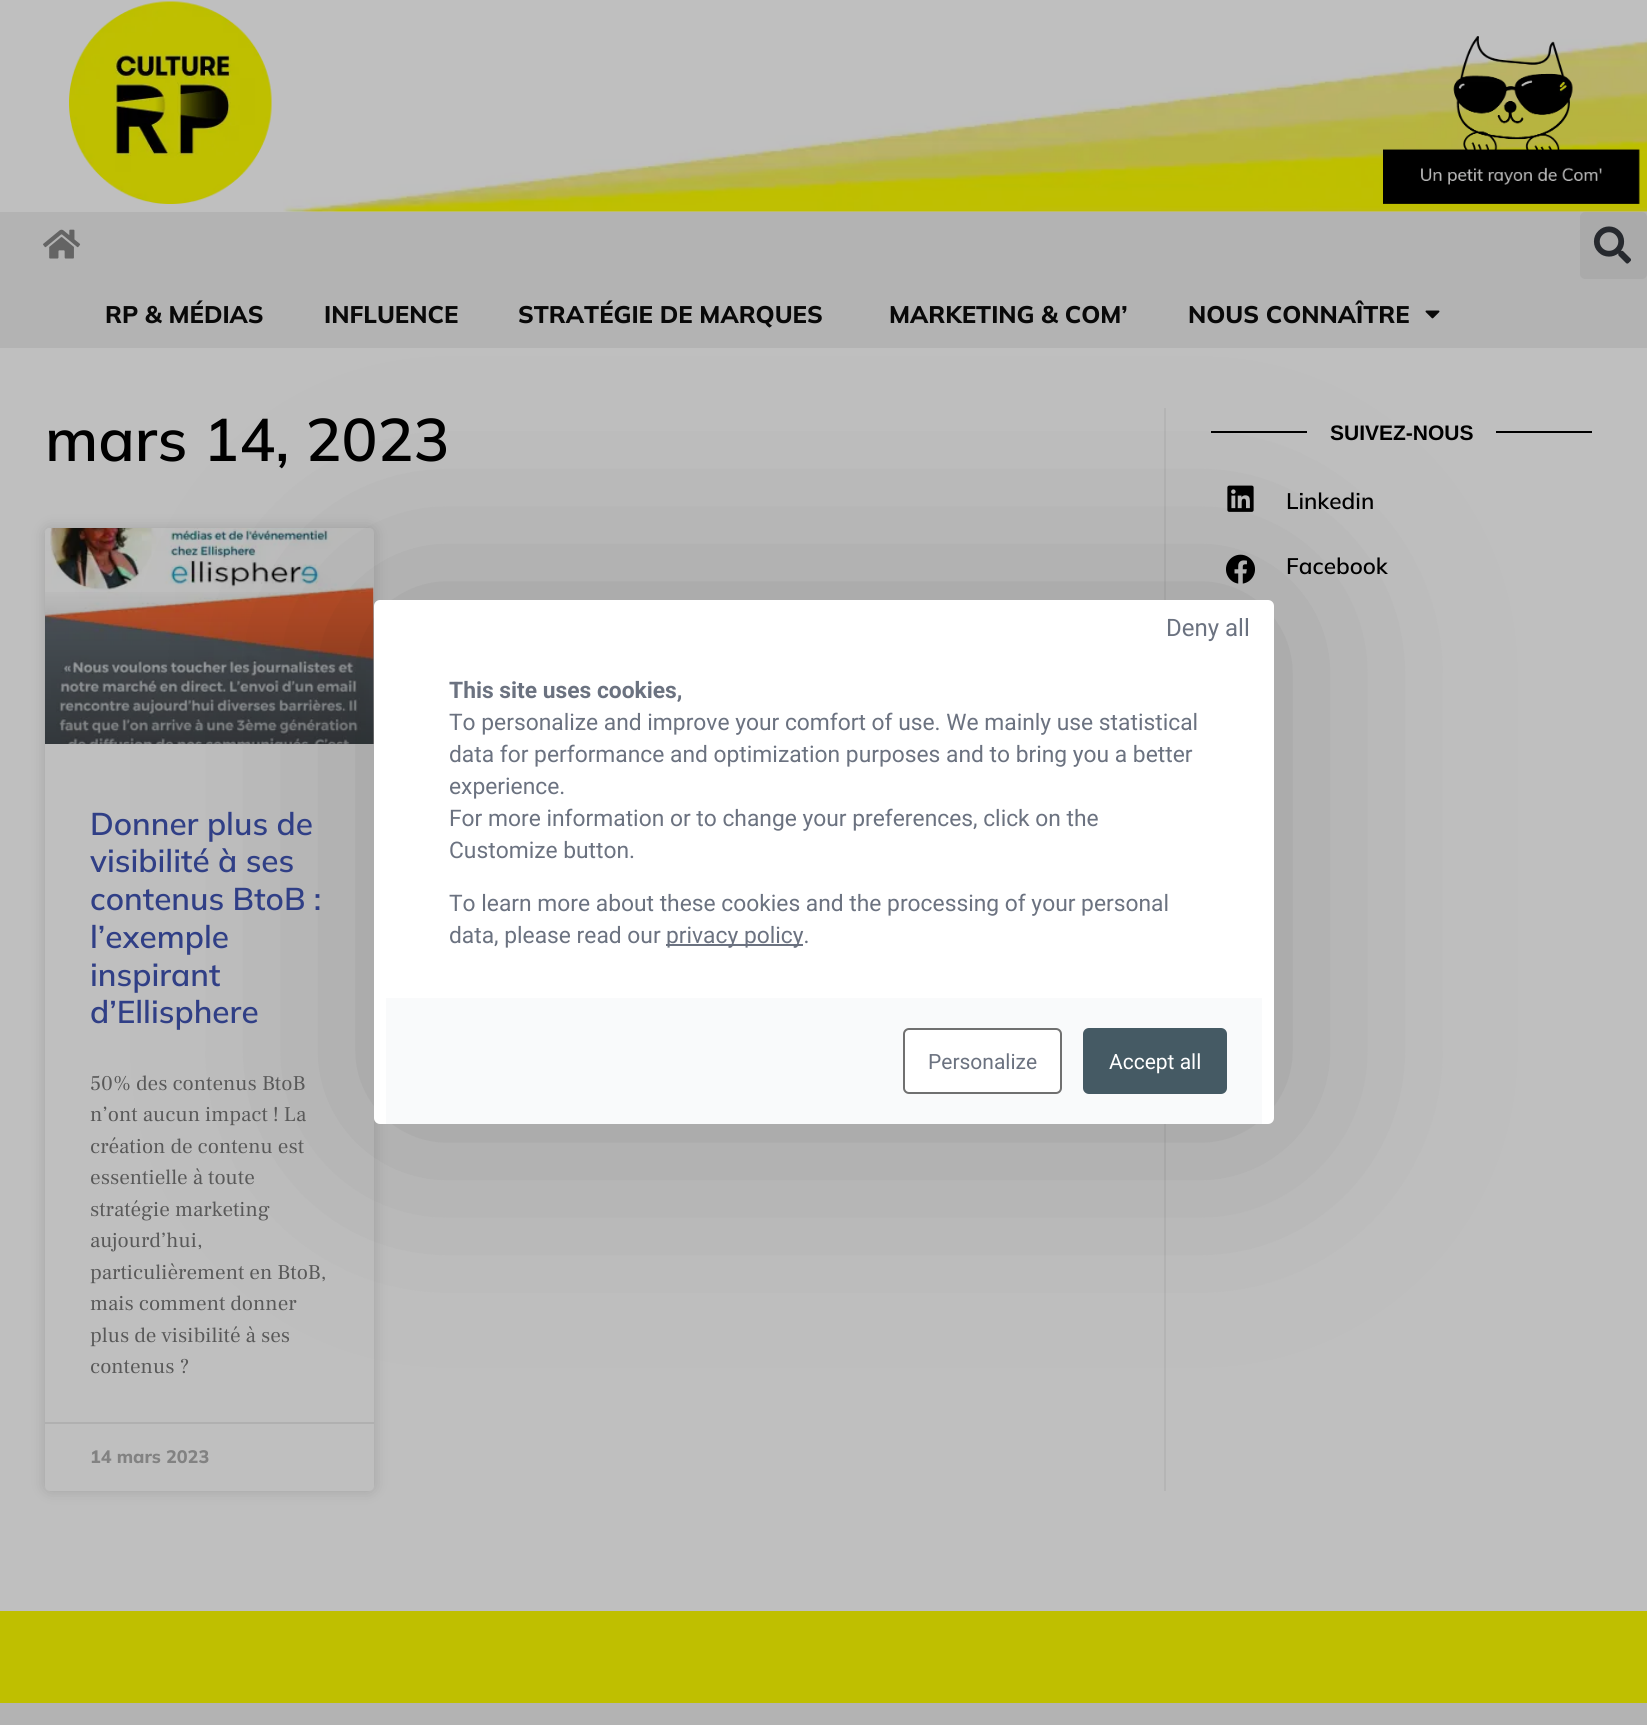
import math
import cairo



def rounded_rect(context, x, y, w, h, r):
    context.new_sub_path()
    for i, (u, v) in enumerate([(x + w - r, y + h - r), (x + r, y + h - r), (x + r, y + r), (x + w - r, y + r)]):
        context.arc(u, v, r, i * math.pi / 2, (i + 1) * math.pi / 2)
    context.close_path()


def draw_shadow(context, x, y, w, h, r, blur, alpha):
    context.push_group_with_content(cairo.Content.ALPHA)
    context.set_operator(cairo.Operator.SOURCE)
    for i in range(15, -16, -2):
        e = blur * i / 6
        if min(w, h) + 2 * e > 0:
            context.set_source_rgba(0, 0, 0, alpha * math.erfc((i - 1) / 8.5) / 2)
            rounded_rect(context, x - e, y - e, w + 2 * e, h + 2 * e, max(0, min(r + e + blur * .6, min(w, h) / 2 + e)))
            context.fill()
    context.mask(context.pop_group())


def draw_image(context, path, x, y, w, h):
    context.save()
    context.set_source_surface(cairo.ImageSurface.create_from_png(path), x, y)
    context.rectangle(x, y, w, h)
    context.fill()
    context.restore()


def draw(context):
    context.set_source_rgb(191 / 255, 191 / 255, 191 / 255)
    context.paint()
    draw_image(context, "images/1.png", 283, 38, 1364, 174)
    draw_image(context, "images/2.png", 69, 1, 203, 203)
    draw_image(context, "images/3.png", 1383, 36, 257, 168)
    context.set_source_rgb(179 / 255, 179 / 255, 179 / 255)
    context.rectangle(0, 212, 1647, 136)
    context.fill()
    context.set_source_rgb(170 / 255, 170 / 255, 170 / 255)
    rounded_rect(context, 1580, 212, 67, 67, 5)
    context.fill()
    draw_image(context, "images/4.png", 1593, 226, 38, 38)
    draw_image(context, "images/5.png", 43, 229, 38, 30)
    draw_image(context, "images/6.png", 1425, 310, 15, 9)
    context.set_source_rgb(181 / 255, 181 / 255, 181 / 255)
    context.rectangle(1164, 408, 2, 1083)
    context.fill()
    context.set_source_rgb(0, 0, 0)
    draw_shadow(context, 45, 528, 329, 963, 5, 7.5, 0.15)
    context.set_source_rgb(191 / 255, 191 / 255, 191 / 255)
    rounded_rect(context, 45, 528, 329, 963, 5)
    context.fill()
    draw_image(context, "images/7.png", 45, 528, 329, 216)
    gradient = cairo.LinearGradient(209, 744, 209, 528)
    gradient.add_color_stop_rgba(0, 0, 0, 0, 0.35)
    gradient.add_color_stop_rgba(0.75, 0, 0, 0, 0)
    context.set_source(gradient)
    context.rectangle(45, 592, 329, 152)
    context.fill()
    context.set_source_rgb(176 / 255, 176 / 255, 176 / 255)
    context.rectangle(45, 1422, 329, 2)
    context.fill()
    context.set_source_rgb(0, 0, 0)
    context.rectangle(1211, 431, 96, 2)
    context.fill()
    context.rectangle(1496, 431, 96, 2)
    context.fill()
    draw_image(context, "images/8.png", 1227, 485, 27, 27)
    draw_image(context, "images/9.png", 1226, 554, 29, 30)
    context.set_source_rgb(0, 0, 0)
    draw_shadow(context, 374, 600, 900, 524, 6, 112.5, 0.2)
    context.set_source_rgb(1, 1, 1)
    rounded_rect(context, 374, 600, 900, 524, 6)
    context.fill()
    context.set_source_rgb(249 / 255, 250 / 255, 251 / 255)
    context.rectangle(386, 998, 876, 126)
    context.fill()
    context.set_source_rgb(1, 1, 1)
    rounded_rect(context, 904, 1029, 157, 64, 5)
    context.fill_preserve()
    context.set_source_rgb(112 / 255, 112 / 255, 112 / 255)
    context.stroke()
    context.set_source_rgb(69 / 255, 90 / 255, 100 / 255)
    rounded_rect(context, 1084, 1029, 142, 64, 5)
    context.fill_preserve()
    context.stroke()
    context.set_source_rgb(107 / 255, 114 / 255, 128 / 255)
    context.rectangle(666, 944, 137, 2)
    context.fill()
    context.set_source_rgb(191 / 255, 191 / 255, 0)
    context.rectangle(0, 1611, 1647, 92)
    context.fill()
    context.set_source_rgb(179 / 255, 179 / 255, 179 / 255)
    context.rectangle(0, 1703, 1647, 22)
    context.fill()
    context.select_font_face("Mulish ExtraBold")
    context.set_font_size(24)
    context.set_source_rgb(9 / 255, 9 / 255, 9 / 255)
    context.move_to(105, 323)
    context.show_text("RP & MÉDIAS")
    context.move_to(324, 323)
    context.show_text("INFLUENCE")
    context.move_to(518, 323)
    context.show_text("STRATÉGIE DE MARQUES")
    context.move_to(889, 323)
    context.show_text("MARKETING & COM’")
    context.move_to(1188, 323)
    context.show_text("NOUS CONNAÎTRE")
    context.select_font_face("Mulish SemiBold")
    context.set_font_size(60)
    context.set_source_rgb(0, 0, 0)
    context.move_to(45, 461)
    context.show_text("mars 14, 2023")
    context.set_font_size(31.5)
    context.set_source_rgb(48 / 255, 63 / 255, 134 / 255)
    context.move_to(90, 835)
    context.show_text("Donner plus de")
    context.move_to(90, 872)
    context.show_text("visibilité à ses")
    context.move_to(90, 910)
    context.show_text("contenus BtoB :")
    context.move_to(90, 948)
    context.show_text("l’exemple")
    context.move_to(90, 986)
    context.show_text("inspirant")
    context.move_to(90, 1023)
    context.show_text("d’Ellisphere")
    context.select_font_face("Frank Ruhl Libre")
    context.set_font_size(21)
    context.set_source_rgb(89 / 255, 89 / 255, 89 / 255)
    context.move_to(90, 1090)
    context.show_text("50% des contenus BtoB")
    context.move_to(90, 1121)
    context.show_text("n’ont aucun impact ! La")
    context.move_to(90, 1153)
    context.show_text("création de contenu est")
    context.move_to(90, 1184)
    context.show_text("essentielle à toute")
    context.move_to(90, 1216)
    context.show_text("stratégie marketing")
    context.move_to(90, 1247)
    context.show_text("aujourd’hui,")
    context.move_to(90, 1279)
    context.show_text("particulièrement en BtoB,")
    context.move_to(90, 1310)
    context.show_text("mais comment donner")
    context.move_to(90, 1342)
    context.show_text("plus de visibilité à ses")
    context.move_to(90, 1373)
    context.show_text("contenus ?")
    context.select_font_face("Mulish ExtraBold")
    context.set_font_size(18)
    context.set_source_rgb(130 / 255, 130 / 255, 130 / 255)
    context.move_to(90, 1463)
    context.show_text("14 mars 2023")
    context.select_font_face("Liberation Sans", cairo.FontSlant.NORMAL, cairo.FontWeight.BOLD)
    context.set_font_size(21)
    context.set_source_rgb(0, 0, 0)
    context.move_to(1330, 440)
    context.show_text("SUIVEZ-NOUS")
    context.select_font_face("Mulish SemiBold")
    context.set_font_size(22.5)
    context.move_to(1286, 509)
    context.show_text("Linkedin")
    context.move_to(1286, 574)
    context.show_text("Facebook")
    context.select_font_face("Roboto")
    context.set_font_size(24)
    context.set_source_rgb(107 / 255, 114 / 255, 128 / 255)
    context.move_to(1166, 636)
    context.show_text("Deny all")
    context.set_font_size(21)
    context.move_to(928, 1069)
    context.show_text("Personalize")
    context.set_source_rgb(1, 1, 1)
    context.move_to(1109, 1069)
    context.show_text("Accept all")
    context.select_font_face("Roboto", cairo.FontSlant.NORMAL, cairo.FontWeight.BOLD)
    context.set_font_size(22.8)
    context.set_source_rgb(107 / 255, 114 / 255, 128 / 255)
    context.move_to(449, 698)
    context.show_text("This site uses cookies,")
    context.select_font_face("Roboto")
    context.move_to(449, 730)
    context.show_text("To personalize and improve your comfort of use. We mainly use statistical")
    context.move_to(449, 762)
    context.show_text("data for performance and optimization purposes and to bring you a better")
    context.move_to(449, 794)
    context.show_text("experience.")
    context.move_to(449, 826)
    context.show_text("For more information or to change your preferences, click on the")
    context.move_to(449, 858)
    context.show_text("Customize button.")
    context.move_to(449, 911)
    context.show_text("To learn more about these cookies and the processing of your personal")
    context.move_to(449, 943)
    context.show_text("data, please read our")
    context.move_to(666, 943)
    context.show_text("privacy policy.")


surface = cairo.ImageSurface(cairo.Format.RGB24, 1647, 1725)
context = cairo.Context(surface)
options = cairo.FontOptions()
options.set_hint_metrics(cairo.HintMetrics.OFF)
options.set_hint_style(cairo.HintStyle.NONE)
context.set_font_options(options)
context.set_miter_limit(4)
draw(context)
surface.write_to_png("out.png")
